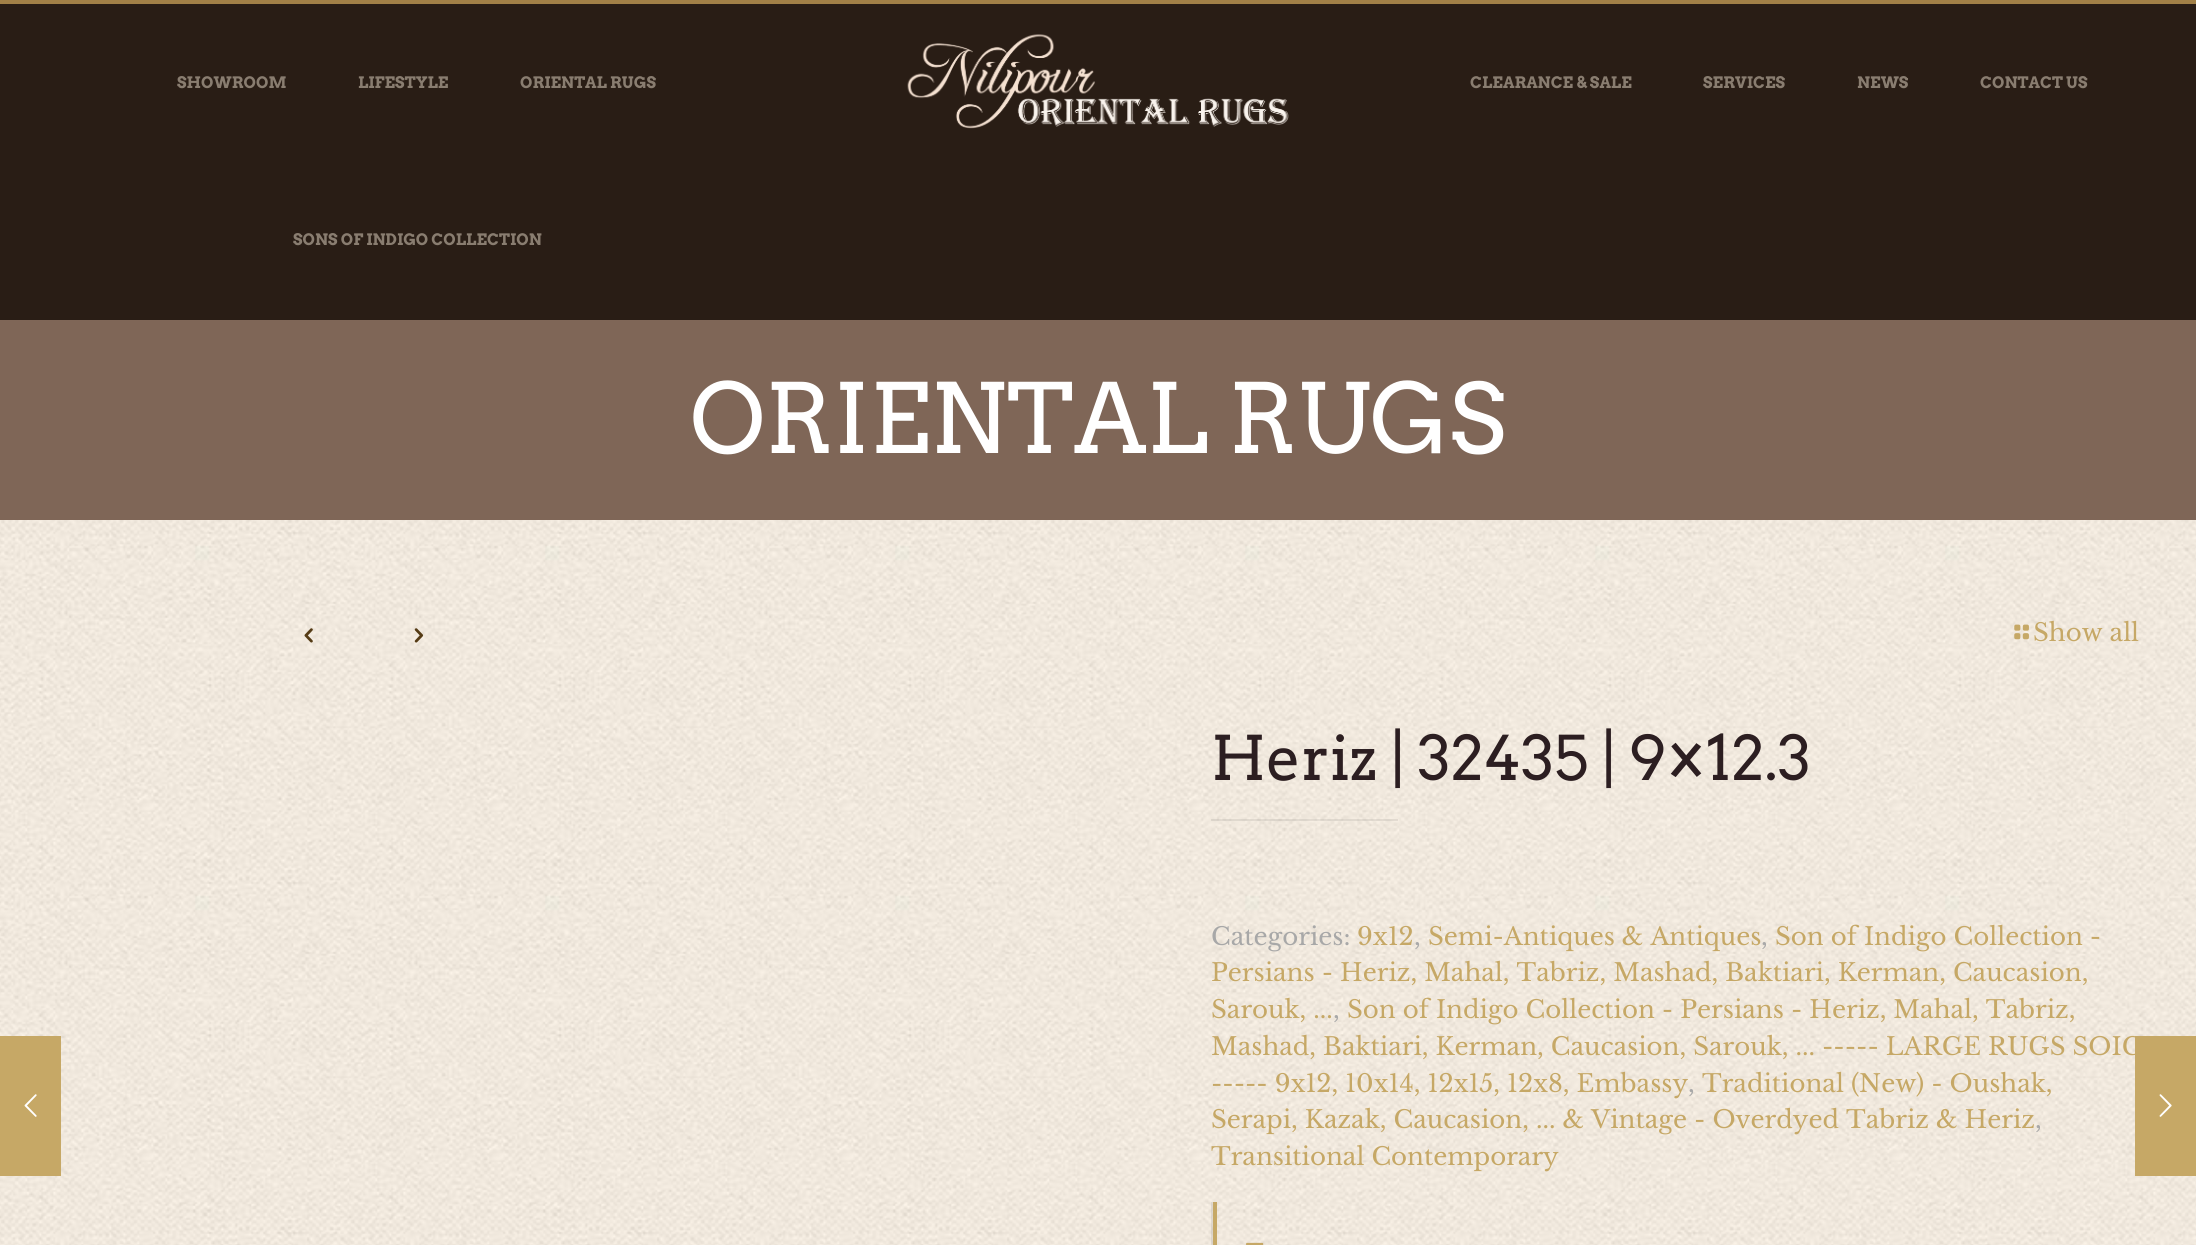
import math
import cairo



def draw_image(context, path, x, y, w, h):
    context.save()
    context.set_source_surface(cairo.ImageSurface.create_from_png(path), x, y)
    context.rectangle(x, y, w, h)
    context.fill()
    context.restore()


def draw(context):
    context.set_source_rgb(1, 1, 1)
    context.paint()
    draw_image(context, "images/1.png", 0, 520, 2196, 725)
    context.set_source_rgb(198 / 255, 168 / 255, 102 / 255)
    context.rectangle(0, 1036, 61, 140)
    context.fill()
    draw_image(context, "images/2.png", 24, 1094, 13, 23)
    context.set_source_rgb(127 / 255, 102 / 255, 87 / 255)
    context.rectangle(0, 320, 2196, 200)
    context.fill()
    context.set_source_rgb(41 / 255, 29 / 255, 21 / 255)
    context.rectangle(0, 4, 2196, 316)
    context.fill()
    context.set_source_rgb(162 / 255, 128 / 255, 71 / 255)
    context.rectangle(0, 0, 2196, 4)
    context.fill()
    draw_image(context, "images/3.png", 907, 34, 382, 95)
    draw_image(context, "images/4.png", 304, 628, 9, 15)
    draw_image(context, "images/5.png", 414, 628, 10, 15)
    draw_image(context, "images/6.png", 2014, 624, 15, 16)
    context.set_source_rgba(0, 0, 0, 0.08)
    context.rectangle(1211, 819, 187, 2)
    context.fill()
    context.rectangle(1211, 1202, 2, 43)
    context.fill()
    context.set_source_rgb(198 / 255, 168 / 255, 102 / 255)
    context.rectangle(1213, 1202, 4, 43)
    context.fill()
    draw_image(context, "images/7.png", 1246, 1242, 18, 3)
    context.rectangle(2135, 1036, 61, 140)
    context.fill()
    draw_image(context, "images/8.png", 2159, 1094, 13, 23)
    context.select_font_face("Arvo", cairo.FontSlant.NORMAL, cairo.FontWeight.BOLD)
    context.set_font_size(15.75)
    context.set_source_rgb(137 / 255, 125 / 255, 112 / 255)
    context.move_to(177, 88)
    context.show_text("SHOWROOM")
    context.move_to(358, 88)
    context.show_text("LIFESTYLE")
    context.move_to(520, 88)
    context.show_text("ORIENTAL RUGS")
    context.move_to(293, 245)
    context.show_text("SONS OF INDIGO COLLECTION")
    context.move_to(1470, 88)
    context.show_text("CLEARANCE & SALE")
    context.move_to(1703, 88)
    context.show_text("SERVICES")
    context.move_to(1857, 88)
    context.show_text("NEWS")
    context.move_to(1980, 88)
    context.show_text("CONTACT US")
    context.select_font_face("Arvo")
    context.set_font_size(96.25)
    context.set_source_rgb(1, 1, 1)
    context.move_to(690, 453)
    context.show_text("ORIENTAL RUGS")
    context.select_font_face("Libre Baskerville")
    context.set_font_size(24.5)
    context.set_source_rgb(198 / 255, 168 / 255, 102 / 255)
    context.move_to(2033, 641)
    context.show_text("Show all")
    context.select_font_face("Arvo")
    context.set_font_size(61.25)
    context.set_source_rgb(44 / 255, 30 / 255, 33 / 255)
    context.move_to(1211, 780)
    context.show_text("Heriz | 32435 | 9×12.3")
    context.select_font_face("Libre Baskerville")
    context.set_font_size(24.5)
    context.set_source_rgb(168 / 255, 168 / 255, 168 / 255)
    context.move_to(1211, 945)
    context.show_text("Categories:")
    context.set_source_rgb(198 / 255, 168 / 255, 102 / 255)
    context.move_to(1357, 945)
    context.show_text("9x12")
    context.set_source_rgb(168 / 255, 168 / 255, 168 / 255)
    context.move_to(1414, 945)
    context.show_text(",")
    context.set_source_rgb(198 / 255, 168 / 255, 102 / 255)
    context.move_to(1428, 945)
    context.show_text("Semi-Antiques & Antiques")
    context.set_source_rgb(168 / 255, 168 / 255, 168 / 255)
    context.move_to(1761, 945)
    context.show_text(",")
    context.set_source_rgb(198 / 255, 168 / 255, 102 / 255)
    context.move_to(1775, 945)
    context.show_text("Son of Indigo Collection -")
    context.move_to(1211, 981)
    context.show_text("Persians - Heriz, Mahal, Tabriz, Mashad, Baktiari, Kerman, Caucasion,")
    context.move_to(1211, 1018)
    context.show_text("Sarouk, ...")
    context.set_source_rgb(168 / 255, 168 / 255, 168 / 255)
    context.move_to(1333, 1018)
    context.show_text(",")
    context.set_source_rgb(198 / 255, 168 / 255, 102 / 255)
    context.move_to(1347, 1018)
    context.show_text("Son of Indigo Collection - Persians - Heriz, Mahal, Tabriz,")
    context.move_to(1211, 1055)
    context.show_text("Mashad, Baktiari, Kerman, Caucasion, Sarouk, ... ----- LARGE RUGS SOIC")
    context.move_to(1211, 1092)
    context.show_text("----- 9x12, 10x14, 12x15, 12x8, Embassy")
    context.set_source_rgb(168 / 255, 168 / 255, 168 / 255)
    context.move_to(1688, 1092)
    context.show_text(",")
    context.set_source_rgb(198 / 255, 168 / 255, 102 / 255)
    context.move_to(1702, 1092)
    context.show_text("Traditional (New) - Oushak,")
    context.move_to(1211, 1128)
    context.show_text("Serapi, Kazak, Caucasion, ... & Vintage - Overdyed Tabriz & Heriz")
    context.set_source_rgb(168 / 255, 168 / 255, 168 / 255)
    context.move_to(2035, 1128)
    context.show_text(",")
    context.set_source_rgb(198 / 255, 168 / 255, 102 / 255)
    context.move_to(1211, 1165)
    context.show_text("Transitional Contemporary")


surface = cairo.ImageSurface(cairo.Format.RGB24, 2196, 1245)
context = cairo.Context(surface)
options = cairo.FontOptions()
options.set_hint_metrics(cairo.HintMetrics.OFF)
options.set_hint_style(cairo.HintStyle.NONE)
context.set_font_options(options)
context.set_miter_limit(4)
draw(context)
surface.write_to_png("out.png")
